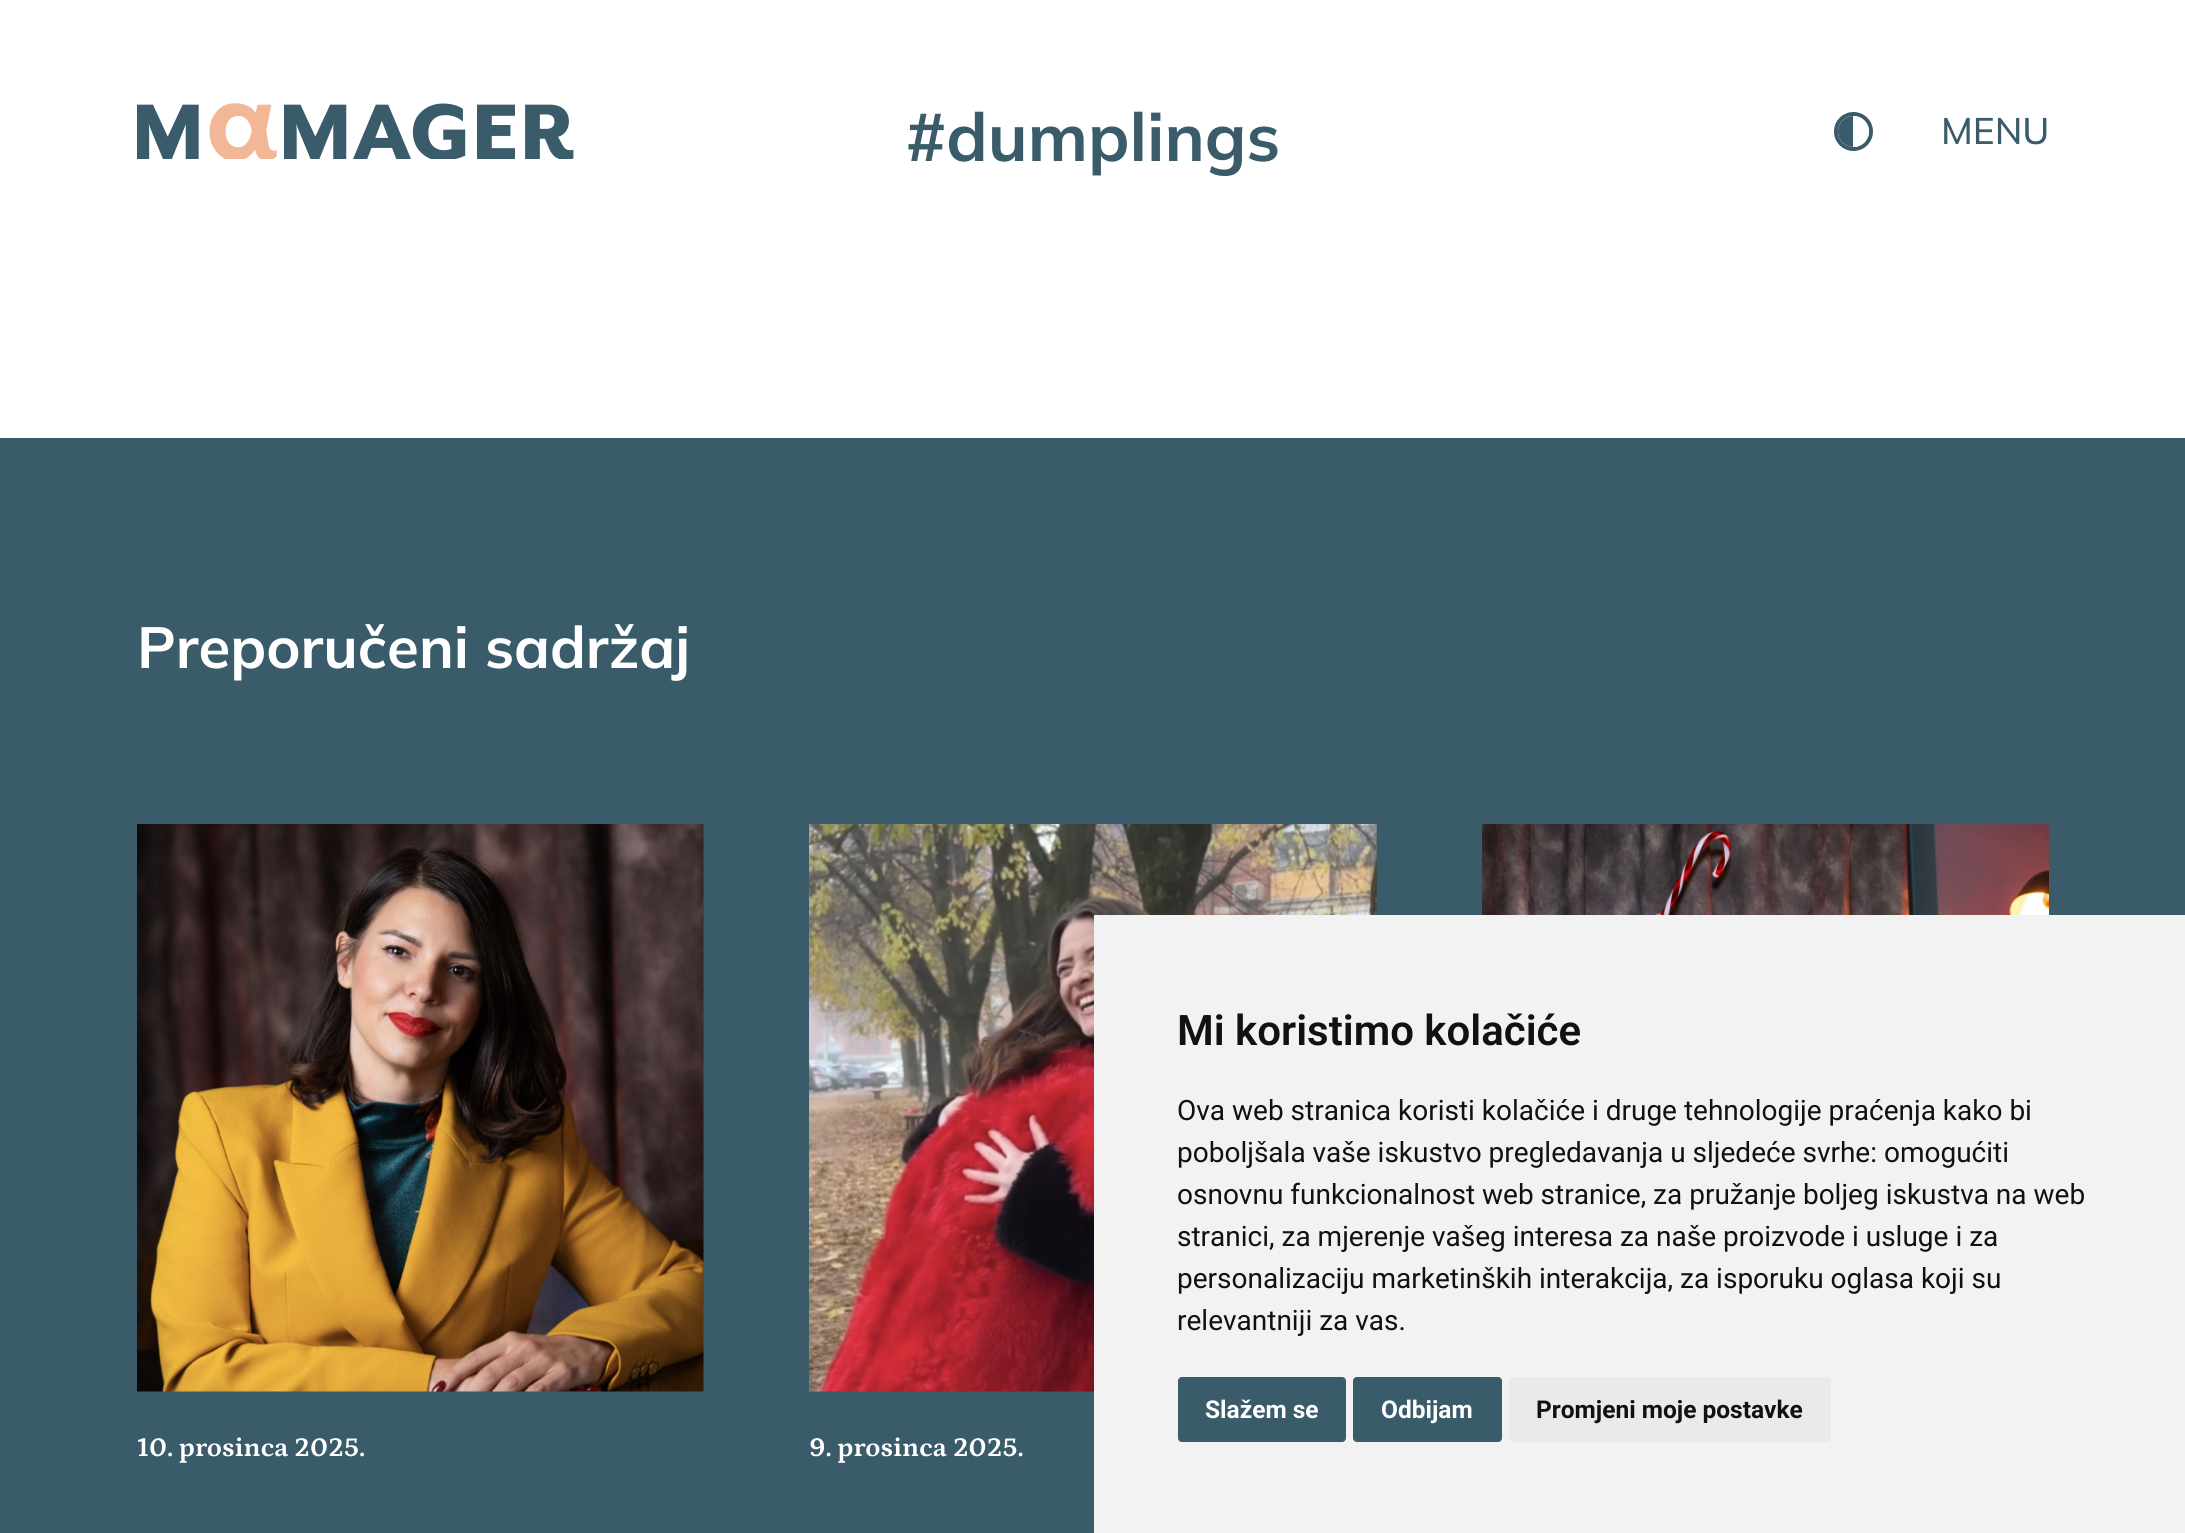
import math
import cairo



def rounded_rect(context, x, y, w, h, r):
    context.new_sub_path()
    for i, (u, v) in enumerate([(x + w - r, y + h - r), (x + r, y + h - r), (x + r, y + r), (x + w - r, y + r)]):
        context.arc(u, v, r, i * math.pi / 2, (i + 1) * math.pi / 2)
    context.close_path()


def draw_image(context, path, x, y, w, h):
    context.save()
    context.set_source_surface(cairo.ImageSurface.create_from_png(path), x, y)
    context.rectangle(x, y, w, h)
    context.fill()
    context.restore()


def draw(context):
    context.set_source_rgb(1, 1, 1)
    context.paint()
    draw_image(context, "images/1.png", 137, 103, 437, 56)
    context.arc(1853.5, 131.5, 17.5, 0, 2 * math.pi)
    context.set_source_rgb(57 / 255, 91 / 255, 106 / 255)
    context.set_line_width(4)
    context.stroke()
    context.save()
    rounded_rect(context, 1838, 116, 31, 31, 15.5)
    context.clip()
    context.rectangle(1838, 116, 15, 31)
    context.fill()
    context.set_source_rgb(1, 1, 1)
    context.new_path()
    context.move_to(1853, 116)
    context.line_to(1853.5, 116)
    context.curve_to(1862, 116, 1869, 123, 1869, 131.5)
    context.curve_to(1869, 140, 1862, 147, 1853.5, 147)
    context.line_to(1853, 147)
    context.close_path()
    context.fill()
    context.restore()
    context.rectangle(0, 438, 2185, 1095)
    context.fill()
    draw_image(context, "images/2.png", 1482, 824, 567, 91)
    draw_image(context, "images/3.png", 137, 824, 567, 568)
    draw_image(context, "images/4.png", 809, 824, 568, 568)
    context.set_source_rgb(242 / 255, 242 / 255, 242 / 255)
    context.rectangle(1094, 915, 1091, 618)
    context.fill()
    context.set_source_rgb(57 / 255, 91 / 255, 106 / 255)
    rounded_rect(context, 1178, 1377, 168, 65, 4)
    context.fill()
    rounded_rect(context, 1353, 1377, 149, 65, 4)
    context.fill()
    context.set_source_rgb(234 / 255, 234 / 255, 234 / 255)
    rounded_rect(context, 1509, 1377, 322, 65, 4)
    context.fill()
    context.select_font_face("Mulish", cairo.FontSlant.NORMAL, cairo.FontWeight.BOLD)
    context.set_font_size(67)
    context.set_source_rgb(57 / 255, 91 / 255, 106 / 255)
    context.move_to(906, 161)
    context.show_text("#dumplings")
    context.select_font_face("Mulish Medium")
    context.set_font_size(37)
    context.move_to(1941, 144)
    context.show_text("MENU")
    context.select_font_face("Mulish", cairo.FontSlant.NORMAL, cairo.FontWeight.BOLD)
    context.set_font_size(58)
    context.set_source_rgb(1, 1, 1)
    context.move_to(137, 668)
    context.show_text("Preporučeni sadržaj")
    context.select_font_face("Petrona", cairo.FontSlant.NORMAL, cairo.FontWeight.BOLD)
    context.set_font_size(27.25)
    context.move_to(137, 1456)
    context.show_text("10. prosinca 2025.")
    context.move_to(809, 1456)
    context.show_text("9. prosinca 2025.")
    context.select_font_face("Roboto SemiBold")
    context.set_font_size(42)
    context.set_source_rgb(17 / 255, 17 / 255, 17 / 255)
    context.move_to(1177, 1045)
    context.show_text("Mi koristimo kolačiće")
    context.select_font_face("Roboto")
    context.set_font_size(28)
    context.move_to(1177, 1120)
    context.show_text("Ova web stranica koristi kolačiće i druge tehnologije praćenja kako bi")
    context.move_to(1177, 1162)
    context.show_text("poboljšala vaše iskustvo pregledavanja u sljedeće svrhe: omogućiti")
    context.move_to(1177, 1204)
    context.show_text("osnovnu funkcionalnost web stranice, za pružanje boljeg iskustva na web")
    context.move_to(1177, 1246)
    context.show_text("stranici, za mjerenje vašeg interesa za naše proizvode i usluge i za")
    context.move_to(1177, 1288)
    context.show_text("personalizaciju marketinških interakcija, za isporuku oglasa koji su")
    context.move_to(1177, 1330)
    context.show_text("relevantniji za vas.")
    context.select_font_face("Roboto", cairo.FontSlant.NORMAL, cairo.FontWeight.BOLD)
    context.set_font_size(24.5)
    context.set_source_rgb(1, 1, 1)
    context.move_to(1205, 1418)
    context.show_text("Slažem se")
    context.move_to(1381, 1418)
    context.show_text("Odbijam")
    context.set_source_rgb(17 / 255, 17 / 255, 17 / 255)
    context.move_to(1536, 1418)
    context.show_text("Promjeni moje postavke")


surface = cairo.ImageSurface(cairo.Format.RGB24, 2185, 1533)
context = cairo.Context(surface)
options = cairo.FontOptions()
options.set_hint_metrics(cairo.HintMetrics.OFF)
options.set_hint_style(cairo.HintStyle.NONE)
context.set_font_options(options)
context.set_miter_limit(4)
draw(context)
surface.write_to_png("out.png")
